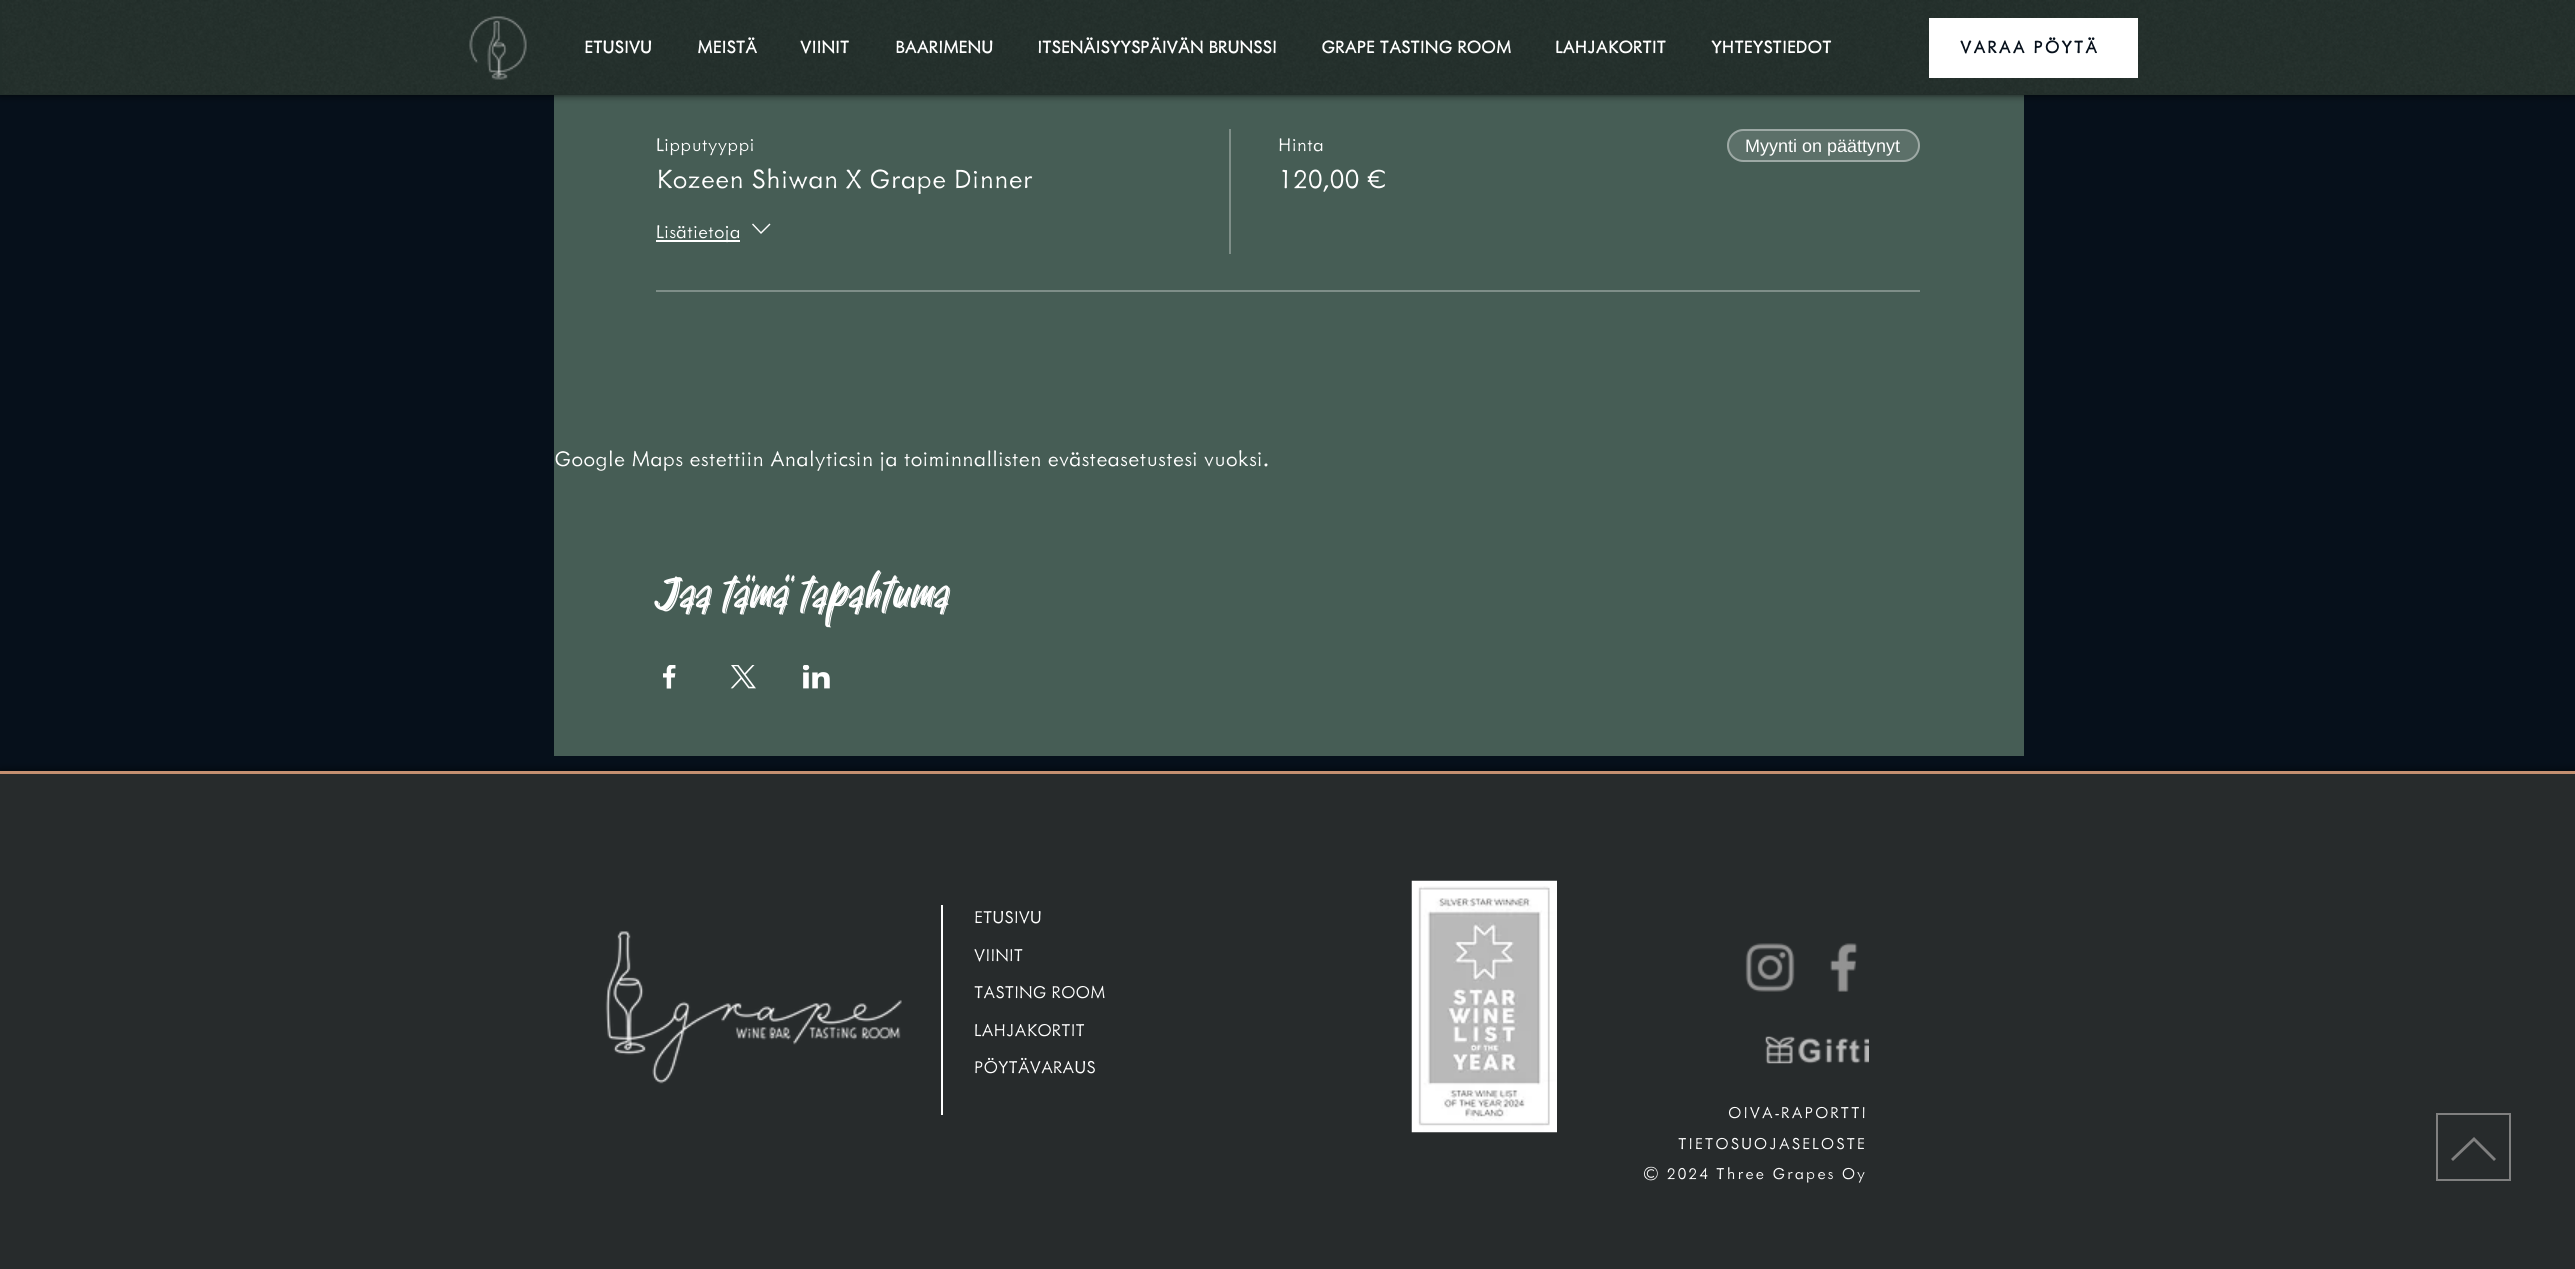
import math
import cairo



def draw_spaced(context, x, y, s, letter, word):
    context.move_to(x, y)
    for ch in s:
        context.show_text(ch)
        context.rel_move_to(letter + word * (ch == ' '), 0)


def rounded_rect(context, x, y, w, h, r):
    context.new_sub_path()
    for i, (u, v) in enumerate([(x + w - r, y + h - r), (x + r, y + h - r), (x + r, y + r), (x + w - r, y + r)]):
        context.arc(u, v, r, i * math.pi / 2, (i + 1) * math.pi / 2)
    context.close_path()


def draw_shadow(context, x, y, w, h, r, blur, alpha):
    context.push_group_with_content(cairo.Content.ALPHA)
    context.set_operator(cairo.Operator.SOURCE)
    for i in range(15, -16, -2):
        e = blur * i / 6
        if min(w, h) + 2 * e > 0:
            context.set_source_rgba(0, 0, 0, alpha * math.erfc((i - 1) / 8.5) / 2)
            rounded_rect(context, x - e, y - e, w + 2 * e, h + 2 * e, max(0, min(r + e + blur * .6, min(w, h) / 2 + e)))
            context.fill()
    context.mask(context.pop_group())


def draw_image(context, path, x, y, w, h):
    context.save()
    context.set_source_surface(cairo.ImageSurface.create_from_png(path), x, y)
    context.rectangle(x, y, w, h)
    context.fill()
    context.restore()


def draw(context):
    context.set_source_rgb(6 / 255, 16 / 255, 27 / 255)
    context.paint()
    context.set_source_rgb(70 / 255, 93 / 255, 85 / 255)
    context.rectangle(554, 95, 1470, 661)
    context.fill()
    context.set_source_rgb(0, 0, 0)
    draw_shadow(context, 0, 0, 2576, 95, 0, 4, 0.7)
    context.set_source_rgb(35 / 255, 47 / 255, 43 / 255)
    context.rectangle(0, 0, 2575, 95)
    context.fill()
    draw_image(context, "images/1.png", 2, 0, 2573, 94)
    draw_image(context, "images/2.png", 469, 16, 58, 64)
    context.set_source_rgb(1, 1, 1)
    context.rectangle(1929, 18, 209, 60)
    context.fill()
    context.set_source_rgb(126 / 255, 142 / 255, 136 / 255)
    context.rectangle(656, 290, 1264, 2)
    context.fill()
    context.set_source_rgb(1, 1, 1)
    context.rectangle(656, 240, 84, 2)
    context.fill()
    context.set_fill_rule(cairo.FillRule.EVEN_ODD)
    context.new_path()
    context.move_to(769.5, 223.5)
    context.line_to(770.5, 224.5)
    context.line_to(761, 234)
    context.line_to(752, 224.5)
    context.line_to(753, 223.5)
    context.line_to(761, 232)
    context.close_path()
    context.fill()
    context.set_source_rgb(126 / 255, 142 / 255, 136 / 255)
    context.rectangle(1229, 129, 2, 125)
    context.fill()
    context.set_source_rgb(92 / 255, 112 / 255, 105 / 255)
    rounded_rect(context, 1727, 129, 193, 33, 16.5)
    context.fill()
    rounded_rect(context, 1728, 130, 191, 31, 15.5)
    context.set_source_rgba(1, 1, 1, 0.4)
    context.stroke()
    draw_image(context, "images/3.png", 663, 665, 13, 24)
    draw_image(context, "images/4.png", 730, 665, 26, 24)
    draw_image(context, "images/5.png", 803, 665, 27, 24)
    context.set_source_rgb(0, 0, 0)
    draw_shadow(context, 0, 771, 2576, 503, 0, 4, 0.7)
    context.set_source_rgb(39 / 255, 43 / 255, 44 / 255)
    context.rectangle(0, 774, 2575, 495)
    context.fill()
    context.set_source_rgb(195 / 255, 143 / 255, 112 / 255)
    context.rectangle(0, 771, 2575, 3)
    context.fill()
    draw_image(context, "images/6.png", 605, 931, 297, 153)
    context.set_source_rgb(1, 1, 1)
    context.rectangle(941, 905, 2, 210)
    context.fill()
    draw_image(context, "images/7.png", 1411, 880, 146, 253)
    draw_image(context, "images/8.png", 1745, 943, 50, 49)
    draw_image(context, "images/9.png", 1830, 943, 28, 49)
    draw_image(context, "images/10.png", 1765, 1036, 104, 28)
    context.rectangle(2437, 1114, 73, 66)
    context.set_source_rgb(128 / 255, 128 / 255, 128 / 255)
    context.stroke()
    context.set_fill_rule(cairo.FillRule.WINDING)
    context.new_path()
    context.move_to(2451, 1159)
    context.line_to(2453, 1161)
    context.line_to(2474, 1141)
    context.line_to(2494, 1161)
    context.line_to(2496, 1159)
    context.line_to(2474, 1137)
    context.close_path()
    context.fill()
    context.select_font_face("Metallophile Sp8", cairo.FontSlant.NORMAL, cairo.FontWeight.BOLD)
    context.set_font_size(19.5)
    context.set_source_rgb(1, 1, 1)
    context.move_to(584, 53)
    context.show_text("ETUSIVU")
    context.move_to(697, 53)
    context.show_text("MEISTÄ")
    context.move_to(800, 53)
    context.show_text("VIINIT")
    context.move_to(895, 53)
    context.show_text("BAARIMENU")
    context.move_to(1037, 53)
    context.show_text("ITSENÄISYYSPÄIVÄN BRUNSSI")
    context.move_to(1321, 53)
    context.show_text("GRAPE TASTING ROOM")
    context.move_to(1555, 53)
    context.show_text("LAHJAKORTIT")
    context.move_to(1711, 53)
    context.show_text("YHTEYSTIEDOT")
    context.set_source_rgb(6 / 255, 16 / 255, 27 / 255)
    draw_spaced(context, 1960, 53, "VARAA PÖYTÄ", 2, 0)
    context.select_font_face("Metallophile Sp8 Light")
    context.set_font_size(21)
    context.set_source_rgb(1, 1, 1)
    context.move_to(656, 151)
    context.show_text("Lipputyyppi")
    context.set_font_size(30)
    context.move_to(656, 188)
    context.show_text("Kozeen Shiwan X Grape Dinner")
    context.set_font_size(21)
    context.move_to(656, 238)
    context.show_text("Lisätietoja")
    context.move_to(1278, 151)
    context.show_text("Hinta")
    context.set_font_size(30)
    context.move_to(1278, 188)
    context.show_text("120,00 €")
    context.select_font_face("Liberation Sans")
    context.set_font_size(18)
    context.move_to(1745, 152)
    context.show_text("Myynti on päättynyt")
    context.select_font_face("Metallophile Sp8 Light")
    context.set_font_size(24)
    context.move_to(554, 466)
    context.show_text("Google Maps estettiin Analyticsin ja toiminnallisten evästeasetustesi vuoksi.")
    context.select_font_face("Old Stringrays")
    context.set_font_size(45)
    context.move_to(656, 607)
    context.show_text("Jaa tämä tapahtuma")
    context.select_font_face("Metallophile Sp8 Light")
    context.set_font_size(19.5)
    context.move_to(974, 923)
    context.show_text("ETUSIVU")
    context.move_to(974, 961)
    context.show_text("VIINIT")
    context.move_to(974, 998)
    context.show_text("TASTING ROOM")
    context.move_to(974, 1036)
    context.show_text("LAHJAKORTIT")
    context.move_to(974, 1073)
    context.show_text("PÖYTÄVARAUS")
    context.set_font_size(18)
    draw_spaced(context, 1728, 1118, "OIVA-RAPORTTI", 1.8, 0)
    draw_spaced(context, 1678, 1149, "TIETOSUOJASELOSTE", 1.8, 0)
    draw_spaced(context, 1643, 1179, "© 2024 Three Grapes Oy", 1.8, 0)


surface = cairo.ImageSurface(cairo.Format.RGB24, 2575, 1269)
context = cairo.Context(surface)
options = cairo.FontOptions()
options.set_hint_metrics(cairo.HintMetrics.OFF)
options.set_hint_style(cairo.HintStyle.NONE)
context.set_font_options(options)
context.set_miter_limit(4)
draw(context)
surface.write_to_png("out.png")
